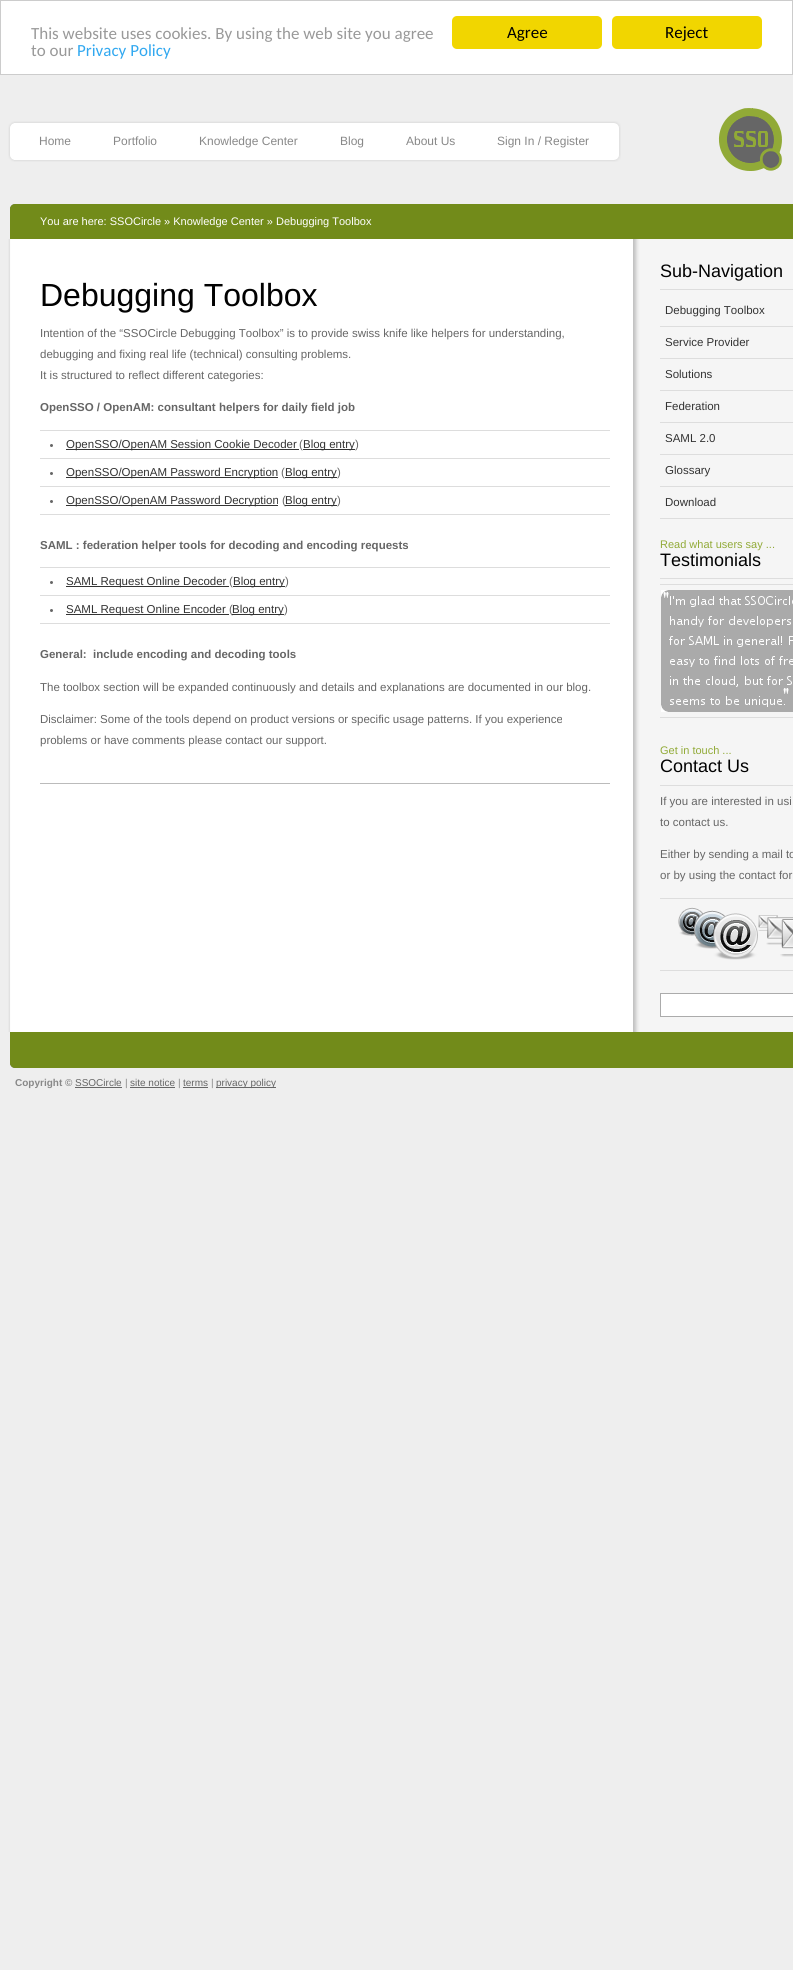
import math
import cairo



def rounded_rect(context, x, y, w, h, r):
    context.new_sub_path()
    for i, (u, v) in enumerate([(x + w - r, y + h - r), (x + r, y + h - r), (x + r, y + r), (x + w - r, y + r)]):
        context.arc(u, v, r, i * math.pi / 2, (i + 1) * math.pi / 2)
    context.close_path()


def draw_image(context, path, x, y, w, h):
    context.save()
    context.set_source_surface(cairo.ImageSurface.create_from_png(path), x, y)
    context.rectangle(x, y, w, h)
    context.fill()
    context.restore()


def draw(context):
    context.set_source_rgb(238 / 255, 238 / 255, 238 / 255)
    context.paint()
    context.set_source_rgb(1, 1, 1)
    context.rectangle(0.5, 0.5, 792, 74)
    context.fill_preserve()
    context.set_source_rgb(204 / 255, 204 / 255, 204 / 255)
    context.set_line_width(1)
    context.stroke()
    context.set_source_rgb(241 / 255, 214 / 255, 0)
    rounded_rect(context, 452, 16, 150, 33, 5)
    context.fill()
    rounded_rect(context, 612, 16, 150, 33, 5)
    context.fill()
    draw_image(context, "images/1.png", 14, 121, 607, 41)
    draw_image(context, "images/2.png", 5, 121, 9, 41)
    draw_image(context, "images/3.png", 718, 108, 65, 63)
    draw_image(context, "images/4.png", 10, 204, 783, 35)
    draw_image(context, "images/5.png", 8, 239, 785, 793)
    context.set_source_rgb(187 / 255, 187 / 255, 187 / 255)
    context.rectangle(40, 783, 570, 1)
    context.fill()
    context.set_source_rgb(221 / 255, 221 / 255, 221 / 255)
    context.rectangle(40, 430, 570, 1)
    context.fill()
    context.rectangle(40, 458, 570, 1)
    context.fill()
    context.set_source_rgb(102 / 255, 102 / 255, 102 / 255)
    context.arc(51.5, 445.5, 1.5, 0, 2 * math.pi)
    context.fill()
    context.set_source_rgb(51 / 255, 51 / 255, 51 / 255)
    context.rectangle(66, 449, 233, 1)
    context.fill()
    context.set_source_rgb(221 / 255, 221 / 255, 221 / 255)
    context.rectangle(40, 486, 570, 1)
    context.fill()
    context.set_source_rgb(102 / 255, 102 / 255, 102 / 255)
    context.arc(51.5, 473.5, 1.5, 0, 2 * math.pi)
    context.fill()
    context.set_source_rgb(51 / 255, 51 / 255, 51 / 255)
    context.rectangle(66, 477, 212, 1)
    context.fill()
    context.rectangle(285, 477, 52, 1)
    context.fill()
    context.set_source_rgb(221 / 255, 221 / 255, 221 / 255)
    context.rectangle(40, 514, 570, 1)
    context.fill()
    context.set_source_rgb(102 / 255, 102 / 255, 102 / 255)
    context.arc(51.5, 501.5, 1.5, 0, 2 * math.pi)
    context.fill()
    context.set_source_rgb(51 / 255, 51 / 255, 51 / 255)
    context.rectangle(66, 505, 212, 1)
    context.fill()
    context.set_source_rgb(221 / 255, 221 / 255, 221 / 255)
    context.rectangle(40, 567, 570, 1)
    context.fill()
    context.rectangle(40, 595, 570, 1)
    context.fill()
    context.set_source_rgb(102 / 255, 102 / 255, 102 / 255)
    context.arc(51.5, 582.5, 1.5, 0, 2 * math.pi)
    context.fill()
    context.set_source_rgb(51 / 255, 51 / 255, 51 / 255)
    context.rectangle(66, 586, 163, 1)
    context.fill()
    context.rectangle(233, 586, 52, 1)
    context.fill()
    context.set_source_rgb(221 / 255, 221 / 255, 221 / 255)
    context.rectangle(40, 623, 570, 1)
    context.fill()
    context.set_source_rgb(102 / 255, 102 / 255, 102 / 255)
    context.arc(51.5, 610.5, 1.5, 0, 2 * math.pi)
    context.fill()
    context.set_source_rgb(51 / 255, 51 / 255, 51 / 255)
    context.rectangle(66, 614, 163, 1)
    context.fill()
    context.set_source_rgb(221 / 255, 221 / 255, 221 / 255)
    context.rectangle(660, 289, 133, 1)
    context.fill()
    context.rectangle(660, 326, 133, 1)
    context.fill()
    context.rectangle(660, 358, 133, 1)
    context.fill()
    context.rectangle(660, 390, 133, 1)
    context.fill()
    context.rectangle(660, 422, 133, 1)
    context.fill()
    context.rectangle(660, 454, 133, 1)
    context.fill()
    context.rectangle(660, 486, 133, 1)
    context.fill()
    context.rectangle(660, 518, 133, 1)
    context.fill()
    context.rectangle(660, 578, 133, 1)
    context.fill()
    context.rectangle(660, 584, 133, 1)
    context.fill()
    draw_image(context, "images/6.png", 661, 590, 132, 122)
    context.rectangle(660, 717, 133, 1)
    context.fill()
    context.rectangle(660, 785, 133, 1)
    context.fill()
    context.rectangle(660, 898, 133, 1)
    context.fill()
    draw_image(context, "images/7.png", 678, 907, 115, 53)
    context.rectangle(660, 970, 133, 1)
    context.fill()
    context.set_source_rgb(1, 1, 1)
    context.rectangle(660.5, 993.5, 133, 23)
    context.fill_preserve()
    context.set_source_rgb(171 / 255, 171 / 255, 171 / 255)
    context.stroke()
    draw_image(context, "images/8.png", 10, 1032, 783, 36)
    context.set_source_rgb(102 / 255, 102 / 255, 102 / 255)
    context.rectangle(75, 1087, 47, 1)
    context.fill()
    context.rectangle(130, 1087, 45, 1)
    context.fill()
    context.rectangle(183, 1087, 25, 1)
    context.fill()
    context.rectangle(216, 1087, 60, 1)
    context.fill()
    context.select_font_face("Carlito")
    context.set_font_size(17)
    context.set_source_rgb(153 / 255, 153 / 255, 153 / 255)
    context.move_to(31, 39)
    context.show_text("This website uses cookies. By using the web site you agree")
    context.move_to(31, 56)
    context.show_text("to our")
    context.set_source_rgb(49 / 255, 168 / 255, 240 / 255)
    context.move_to(77, 56)
    context.show_text("Privacy Policy")
    context.set_source_rgb(1 / 255, 1 / 255, 1 / 255)
    context.move_to(507, 38)
    context.show_text("Agree")
    context.move_to(665, 38)
    context.show_text("Reject")
    context.select_font_face("Liberation Sans")
    context.set_font_size(12)
    context.set_source_rgb(136 / 255, 136 / 255, 136 / 255)
    context.move_to(39, 145)
    context.show_text("Home")
    context.move_to(113, 145)
    context.show_text("Portfolio")
    context.move_to(199, 145)
    context.show_text("Knowledge Center")
    context.move_to(340, 145)
    context.show_text("Blog")
    context.move_to(406, 145)
    context.show_text("About Us")
    context.move_to(497, 145)
    context.show_text("Sign In / Register")
    context.set_font_size(11)
    context.set_source_rgb(1, 1, 1)
    context.move_to(40, 225)
    context.show_text("You are here: SSOCircle » Knowledge Center » Debugging Toolbox")
    context.set_font_size(32)
    context.set_source_rgb(1 / 255, 1 / 255, 1 / 255)
    context.move_to(40, 306)
    context.show_text("Debugging Toolbox")
    context.set_font_size(11.5)
    context.set_source_rgb(102 / 255, 102 / 255, 102 / 255)
    context.move_to(40, 337)
    context.show_text("Intention of the “SSOCircle Debugging Toolbox” is to provide swiss knife like helpers for understanding,")
    context.move_to(40, 358)
    context.show_text("debugging and fixing real life (technical) consulting problems.")
    context.move_to(40, 379)
    context.show_text("It is structured to reflect different categories:")
    context.select_font_face("Liberation Sans", cairo.FontSlant.NORMAL, cairo.FontWeight.BOLD)
    context.move_to(40, 411)
    context.show_text("OpenSSO / OpenAM: consultant helpers for daily field job")
    context.select_font_face("Liberation Sans")
    context.set_source_rgb(51 / 255, 51 / 255, 51 / 255)
    context.move_to(66, 448)
    context.show_text("OpenSSO/OpenAM Session Cookie Decoder")
    context.set_source_rgb(102 / 255, 102 / 255, 102 / 255)
    context.move_to(299, 448)
    context.show_text("(")
    context.set_source_rgb(51 / 255, 51 / 255, 51 / 255)
    context.rectangle(303, 449, 52, 1)
    context.fill()
    context.move_to(303, 448)
    context.show_text("Blog entry")
    context.set_source_rgb(102 / 255, 102 / 255, 102 / 255)
    context.move_to(355, 448)
    context.show_text(")")
    context.set_source_rgb(51 / 255, 51 / 255, 51 / 255)
    context.move_to(66, 476)
    context.show_text("OpenSSO/OpenAM Password Encryption")
    context.set_source_rgb(102 / 255, 102 / 255, 102 / 255)
    context.move_to(281, 476)
    context.show_text("(")
    context.set_source_rgb(51 / 255, 51 / 255, 51 / 255)
    context.move_to(285, 476)
    context.show_text("Blog entry")
    context.set_source_rgb(102 / 255, 102 / 255, 102 / 255)
    context.move_to(337, 476)
    context.show_text(")")
    context.set_source_rgb(51 / 255, 51 / 255, 51 / 255)
    context.move_to(66, 504)
    context.show_text("OpenSSO/OpenAM Password Decryption")
    context.set_source_rgb(102 / 255, 102 / 255, 102 / 255)
    context.move_to(282, 504)
    context.show_text("(")
    context.set_source_rgb(51 / 255, 51 / 255, 51 / 255)
    context.rectangle(285, 505, 52, 1)
    context.fill()
    context.move_to(285, 504)
    context.show_text("Blog entry")
    context.set_source_rgb(102 / 255, 102 / 255, 102 / 255)
    context.move_to(337, 504)
    context.show_text(")")
    context.select_font_face("Liberation Sans", cairo.FontSlant.NORMAL, cairo.FontWeight.BOLD)
    context.move_to(40, 549)
    context.show_text("SAML : federation helper tools for decoding and encoding requests")
    context.select_font_face("Liberation Sans")
    context.set_source_rgb(51 / 255, 51 / 255, 51 / 255)
    context.move_to(66, 585)
    context.show_text("SAML Request Online Decoder")
    context.set_source_rgb(102 / 255, 102 / 255, 102 / 255)
    context.move_to(229, 585)
    context.show_text("(")
    context.set_source_rgb(51 / 255, 51 / 255, 51 / 255)
    context.move_to(233, 585)
    context.show_text("Blog entry")
    context.set_source_rgb(102 / 255, 102 / 255, 102 / 255)
    context.move_to(285, 585)
    context.show_text(")")
    context.set_source_rgb(51 / 255, 51 / 255, 51 / 255)
    context.move_to(66, 613)
    context.show_text("SAML Request Online Encoder")
    context.set_source_rgb(102 / 255, 102 / 255, 102 / 255)
    context.move_to(229, 613)
    context.show_text("(")
    context.set_source_rgb(51 / 255, 51 / 255, 51 / 255)
    context.rectangle(232, 614, 52, 1)
    context.fill()
    context.move_to(232, 613)
    context.show_text("Blog entry")
    context.set_source_rgb(102 / 255, 102 / 255, 102 / 255)
    context.move_to(284, 613)
    context.show_text(")")
    context.select_font_face("Liberation Sans", cairo.FontSlant.NORMAL, cairo.FontWeight.BOLD)
    context.move_to(40, 658)
    context.show_text("General:  include encoding and decoding tools")
    context.select_font_face("Liberation Sans")
    context.move_to(40, 691)
    context.show_text("The toolbox section will be expanded continuously and details and explanations are documented in our blog.")
    context.move_to(40, 723)
    context.show_text("Disclaimer: Some of the tools depend on product versions or specific usage patterns. If you experience")
    context.move_to(40, 744)
    context.show_text("problems or have comments please contact our support.")
    context.set_font_size(18)
    context.set_source_rgb(1 / 255, 1 / 255, 1 / 255)
    context.move_to(660, 277)
    context.show_text("Sub-Navigation")
    context.set_font_size(11.5)
    context.set_source_rgb(51 / 255, 51 / 255, 51 / 255)
    context.move_to(665, 314)
    context.show_text("Debugging Toolbox")
    context.move_to(665, 346)
    context.show_text("Service Provider")
    context.move_to(665, 378)
    context.show_text("Solutions")
    context.move_to(665, 410)
    context.show_text("Federation")
    context.move_to(665, 442)
    context.show_text("SAML 2.0")
    context.move_to(665, 474)
    context.show_text("Glossary")
    context.move_to(665, 506)
    context.show_text("Download")
    context.set_font_size(11)
    context.set_source_rgb(145 / 255, 170 / 255, 55 / 255)
    context.move_to(660, 548)
    context.show_text("Read what users say ...")
    context.set_font_size(18)
    context.set_source_rgb(1 / 255, 1 / 255, 1 / 255)
    context.move_to(660, 566)
    context.show_text("Testimonials")
    context.set_font_size(11)
    context.set_source_rgb(145 / 255, 170 / 255, 55 / 255)
    context.move_to(660, 754)
    context.show_text("Get in touch ...")
    context.set_font_size(18)
    context.set_source_rgb(1 / 255, 1 / 255, 1 / 255)
    context.move_to(660, 772)
    context.show_text("Contact Us")
    context.set_font_size(11.5)
    context.set_source_rgb(102 / 255, 102 / 255, 102 / 255)
    context.move_to(660, 805)
    context.show_text("If you are interested in usi")
    context.move_to(660, 826)
    context.show_text("to contact us.")
    context.move_to(660, 858)
    context.show_text("Either by sending a mail to")
    context.move_to(660, 879)
    context.show_text("or by using the contact for")
    context.select_font_face("Liberation Sans", cairo.FontSlant.NORMAL, cairo.FontWeight.BOLD)
    context.set_font_size(10)
    context.set_source_rgb(136 / 255, 136 / 255, 136 / 255)
    context.move_to(15, 1086)
    context.show_text("Copyright ©")
    context.select_font_face("Liberation Sans")
    context.set_source_rgb(102 / 255, 102 / 255, 102 / 255)
    context.move_to(75, 1086)
    context.show_text("SSOCircle")
    context.set_source_rgb(136 / 255, 136 / 255, 136 / 255)
    context.move_to(125, 1086)
    context.show_text("|")
    context.set_source_rgb(102 / 255, 102 / 255, 102 / 255)
    context.move_to(130, 1086)
    context.show_text("site notice")
    context.set_source_rgb(136 / 255, 136 / 255, 136 / 255)
    context.move_to(178, 1086)
    context.show_text("|")
    context.set_source_rgb(102 / 255, 102 / 255, 102 / 255)
    context.move_to(183, 1086)
    context.show_text("terms")
    context.set_source_rgb(136 / 255, 136 / 255, 136 / 255)
    context.move_to(211, 1086)
    context.show_text("|")
    context.set_source_rgb(102 / 255, 102 / 255, 102 / 255)
    context.move_to(216, 1086)
    context.show_text("privacy policy")


surface = cairo.ImageSurface(cairo.Format.RGB24, 793, 1970)
context = cairo.Context(surface)
options = cairo.FontOptions()
options.set_hint_metrics(cairo.HintMetrics.OFF)
options.set_hint_style(cairo.HintStyle.NONE)
context.set_font_options(options)
context.set_miter_limit(4)
draw(context)
surface.write_to_png("out.png")
